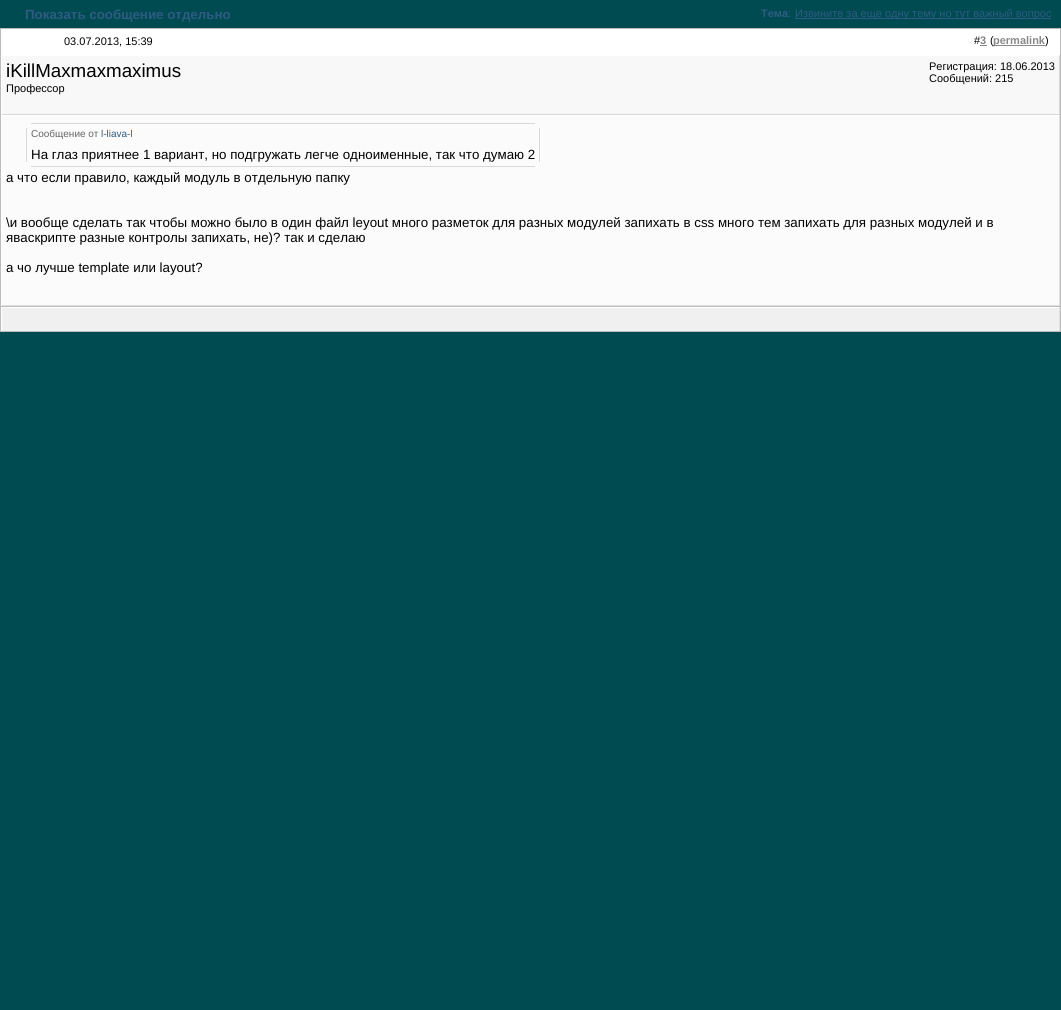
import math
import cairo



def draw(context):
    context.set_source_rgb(0, 75 / 255, 82 / 255)
    context.paint()
    context.set_source_rgb(46 / 255, 91 / 255, 130 / 255)
    context.rectangle(795, 18, 256, 1)
    context.fill()
    context.rectangle(0.5, 28.5, 1060, 278)
    context.set_source_rgb(187 / 255, 187 / 255, 187 / 255)
    context.set_line_width(1)
    context.stroke()
    context.set_source_rgb(1, 1, 1)
    context.rectangle(1, 29, 1059, 27)
    context.fill()
    context.set_source_rgb(136 / 255, 136 / 255, 136 / 255)
    context.rectangle(980, 45, 7, 1)
    context.fill()
    context.set_source_rgb(248 / 255, 248 / 255, 248 / 255)
    context.rectangle(2, 56, 1057, 58)
    context.fill()
    context.set_source_rgb(215 / 255, 215 / 255, 215 / 255)
    context.rectangle(1059, 55, 1, 60)
    context.fill()
    context.rectangle(1, 114, 1059, 1)
    context.fill()
    context.set_source_rgb(1, 1, 1)
    context.rectangle(1, 55, 1, 60)
    context.fill()
    context.set_source_rgb(251 / 255, 251 / 255, 251 / 255)
    context.rectangle(2, 116, 1057, 189)
    context.fill()
    context.set_source_rgb(1, 1, 1)
    context.rectangle(1, 115, 1059, 1)
    context.fill()
    context.set_source_rgb(224 / 255, 224 / 255, 224 / 255)
    context.rectangle(1059, 115, 1, 191)
    context.fill()
    context.rectangle(1, 305, 1059, 1)
    context.fill()
    context.set_source_rgb(1, 1, 1)
    context.rectangle(1, 115, 1, 191)
    context.fill()
    context.set_source_rgb(216 / 255, 216 / 255, 216 / 255)
    context.rectangle(31, 123, 504, 1)
    context.fill()
    context.rectangle(539, 128, 1, 34)
    context.fill()
    context.rectangle(26, 128, 1, 34)
    context.fill()
    context.rectangle(31, 166, 504, 1)
    context.fill()
    context.set_source_rgb(187 / 255, 187 / 255, 187 / 255)
    context.rectangle(1060, 307, 1, 25)
    context.fill()
    context.rectangle(0, 331, 1061, 1)
    context.fill()
    context.rectangle(0, 307, 1, 25)
    context.fill()
    context.set_source_rgb(240 / 255, 240 / 255, 240 / 255)
    context.rectangle(2, 308, 1057, 23)
    context.fill()
    context.set_source_rgb(1, 1, 1)
    context.rectangle(1, 307, 1059, 1)
    context.fill()
    context.set_source_rgb(224 / 255, 224 / 255, 224 / 255)
    context.rectangle(1059, 307, 1, 24)
    context.fill()
    context.set_source_rgb(1, 1, 1)
    context.rectangle(1, 307, 1, 24)
    context.fill()
    context.select_font_face("Liberation Sans", cairo.FontSlant.NORMAL, cairo.FontWeight.BOLD)
    context.set_font_size(13.33)
    context.set_source_rgb(46 / 255, 91 / 255, 130 / 255)
    context.move_to(25, 19)
    context.show_text("Показать сообщение отдельно")
    context.set_font_size(11)
    context.move_to(761, 17)
    context.show_text("Тема")
    context.select_font_face("Liberation Sans")
    context.move_to(788, 17)
    context.show_text(":")
    context.move_to(795, 17)
    context.show_text("Извините за еще одну тему но тут важный вопрос")
    context.set_source_rgb(0, 0, 0)
    context.move_to(64, 45)
    context.show_text("03.07.2013, 15:39")
    context.move_to(974, 44)
    context.show_text("#")
    context.select_font_face("Liberation Sans", cairo.FontSlant.NORMAL, cairo.FontWeight.BOLD)
    context.set_source_rgb(136 / 255, 136 / 255, 136 / 255)
    context.move_to(980, 44)
    context.show_text("3")
    context.select_font_face("Liberation Sans")
    context.set_source_rgb(0, 0, 0)
    context.move_to(990, 44)
    context.show_text("(")
    context.set_source_rgb(136 / 255, 136 / 255, 136 / 255)
    context.rectangle(993, 45, 52, 1)
    context.fill()
    context.select_font_face("Liberation Sans", cairo.FontSlant.NORMAL, cairo.FontWeight.BOLD)
    context.move_to(993, 44)
    context.show_text("permalink")
    context.select_font_face("Liberation Sans")
    context.set_source_rgb(0, 0, 0)
    context.move_to(1045, 44)
    context.show_text(")")
    context.set_font_size(18.75)
    context.move_to(6, 77)
    context.show_text("iKillMaxmaxmaximus")
    context.set_font_size(11)
    context.move_to(6, 92)
    context.show_text("Профессор")
    context.move_to(929, 70)
    context.show_text("Регистрация: 18.06.2013")
    context.move_to(929, 82)
    context.show_text("Сообщений: 215")
    context.set_font_size(10)
    context.set_source_rgb(102 / 255, 102 / 255, 102 / 255)
    context.move_to(31, 137)
    context.show_text("Сообщение от")
    context.set_source_rgb(46 / 255, 91 / 255, 130 / 255)
    context.move_to(101, 137)
    context.show_text("l-liava-l")
    context.set_font_size(13.33)
    context.set_source_rgb(0, 0, 0)
    context.move_to(31, 159)
    context.show_text("На глаз приятнее 1 вариант, но подгружать легче одноименные, так что думаю 2")
    context.move_to(6, 182)
    context.show_text("а что если правило, каждый модуль в отдельную папку")
    context.move_to(6, 227)
    context.show_text("\\и вообще сделать так чтобы можно было в один файл leyout много разметок для разных модулей запихать в css много тем запихать для разных модулей и в")
    context.move_to(6, 242)
    context.show_text("яваскрипте разные контролы запихать, не)? так и сделаю")
    context.move_to(6, 272)
    context.show_text("а чо лучше template или layout?")


surface = cairo.ImageSurface(cairo.Format.RGB24, 1061, 1010)
context = cairo.Context(surface)
options = cairo.FontOptions()
options.set_hint_metrics(cairo.HintMetrics.OFF)
options.set_hint_style(cairo.HintStyle.NONE)
context.set_font_options(options)
context.set_miter_limit(4)
draw(context)
surface.write_to_png("out.png")
